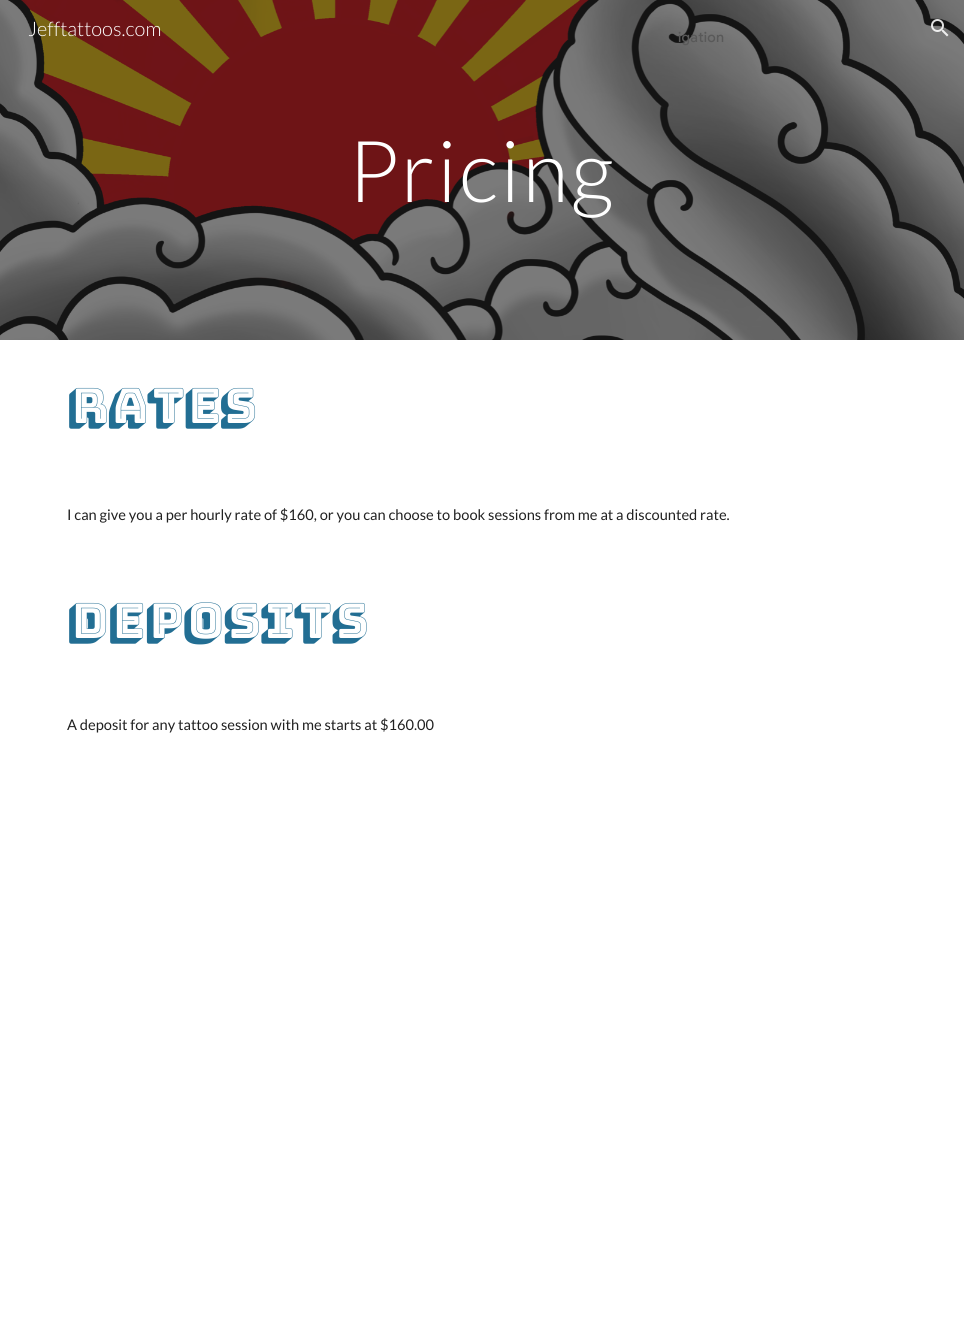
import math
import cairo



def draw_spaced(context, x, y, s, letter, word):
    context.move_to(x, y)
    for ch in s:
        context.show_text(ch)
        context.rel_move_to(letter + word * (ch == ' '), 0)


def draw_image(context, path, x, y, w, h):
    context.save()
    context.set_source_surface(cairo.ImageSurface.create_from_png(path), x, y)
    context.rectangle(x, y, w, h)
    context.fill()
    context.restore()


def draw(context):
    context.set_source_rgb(1, 1, 1)
    context.paint()
    draw_image(context, "images/2.png", 0, 0, 964, 340)
    draw_image(context, "images/1.png", 931, 19, 18, 18)
    context.select_font_face("Lato Light")
    context.set_font_size(20)
    context.set_source_rgb(1, 1, 1)
    context.move_to(28, 36)
    context.show_text("Jefftattoos.com")
    context.set_font_size(85.5)
    draw_spaced(context, 348, 202, "Pricing", 2, 0)
    context.select_font_face("Bungee Shade")
    context.set_font_size(48)
    context.set_source_rgb(34 / 255, 110 / 255, 147 / 255)
    context.move_to(67, 423)
    context.show_text("Rates")
    context.select_font_face("Lato")
    context.set_font_size(14.65)
    context.set_source_rgb(33 / 255, 33 / 255, 33 / 255)
    context.move_to(67, 520)
    context.show_text("I can give you a per hourly rate of $160, or you can choose to book sessions from me at a discounted rate.")
    context.select_font_face("Bungee Shade")
    context.set_font_size(48)
    context.set_source_rgb(34 / 255, 110 / 255, 147 / 255)
    draw_spaced(context, 67, 638, "DEPOSITS", 0.5, 0)
    context.select_font_face("Lato")
    context.set_font_size(14.65)
    context.set_source_rgb(33 / 255, 33 / 255, 33 / 255)
    context.move_to(67, 730)
    context.show_text("A deposit for any tattoo session with me starts at $160.00")
    context.select_font_face("Google Sans Medium")
    context.set_font_size(14)
    context.set_source_rgb(89 / 255, 89 / 255, 89 / 255)
    draw_spaced(context, 678, 42, "igation", 0.25, 0)


surface = cairo.ImageSurface(cairo.Format.RGB24, 964, 1320)
context = cairo.Context(surface)
options = cairo.FontOptions()
options.set_hint_metrics(cairo.HintMetrics.OFF)
options.set_hint_style(cairo.HintStyle.NONE)
context.set_font_options(options)
context.set_miter_limit(4)
draw(context)
surface.write_to_png("out.png")
